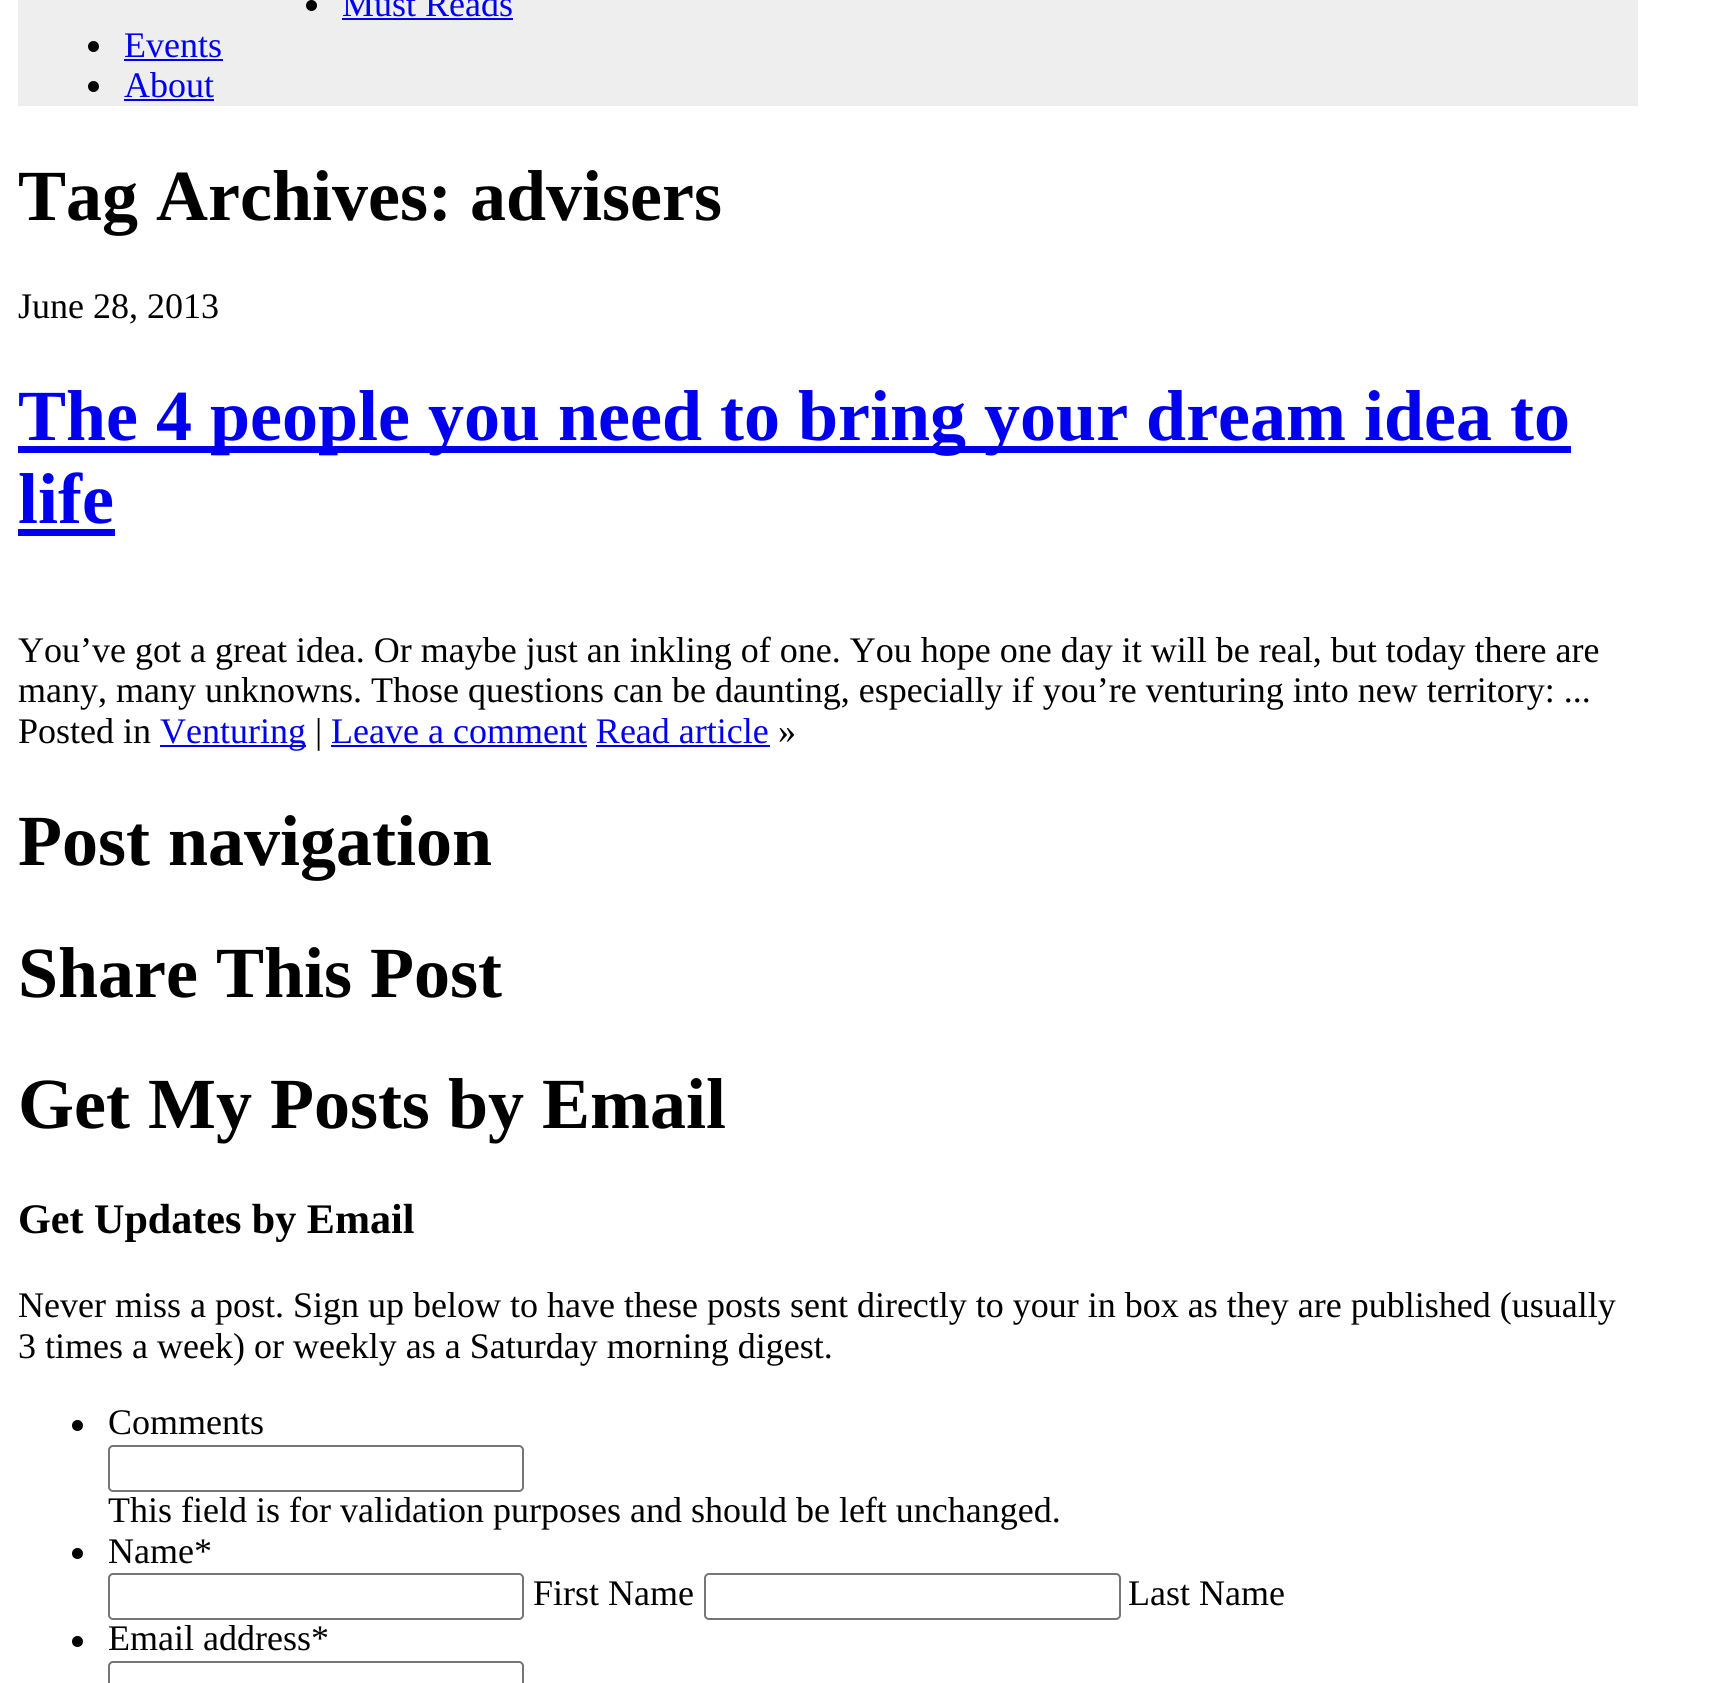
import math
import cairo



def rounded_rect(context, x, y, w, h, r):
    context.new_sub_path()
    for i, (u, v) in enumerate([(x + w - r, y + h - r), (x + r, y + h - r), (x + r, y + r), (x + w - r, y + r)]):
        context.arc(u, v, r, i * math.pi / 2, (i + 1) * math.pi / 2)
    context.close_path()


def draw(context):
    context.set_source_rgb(1, 1, 1)
    context.paint()
    context.set_source_rgb(238 / 255, 238 / 255, 238 / 255)
    context.rectangle(18, 0, 1620, 106)
    context.fill()
    context.set_source_rgb(0, 0, 0)
    context.arc(311.5, 5.5, 5.5, 0, 2 * math.pi)
    context.fill()
    context.set_source_rgb(0, 0, 238 / 255)
    context.rectangle(342, 18, 171, 2)
    context.fill()
    context.set_source_rgb(0, 0, 0)
    context.arc(93.5, 46.5, 5.5, 0, 2 * math.pi)
    context.fill()
    context.set_source_rgb(0, 0, 238 / 255)
    context.rectangle(124, 59, 99, 2)
    context.fill()
    context.set_source_rgb(0, 0, 0)
    context.arc(93.5, 86.5, 5.5, 0, 2 * math.pi)
    context.fill()
    context.set_source_rgb(0, 0, 238 / 255)
    context.rectangle(124, 99, 90, 2)
    context.fill()
    context.rectangle(18, 446, 1553, 7)
    context.fill()
    context.rectangle(18, 529, 97, 7)
    context.fill()
    context.rectangle(160, 745, 146, 2)
    context.fill()
    context.rectangle(331, 745, 256, 2)
    context.fill()
    context.rectangle(596, 745, 174, 2)
    context.fill()
    context.set_source_rgb(0, 0, 0)
    context.arc(77.5, 1425.5, 5.5, 0, 2 * math.pi)
    context.fill()
    rounded_rect(context, 109, 1446, 414, 45, 4)
    context.set_source_rgb(118 / 255, 118 / 255, 118 / 255)
    context.stroke()
    context.set_source_rgb(0, 0, 0)
    context.arc(77.5, 1553.5, 5.5, 0, 2 * math.pi)
    context.fill()
    rounded_rect(context, 109, 1574, 414, 45, 4)
    context.set_source_rgb(118 / 255, 118 / 255, 118 / 255)
    context.stroke()
    rounded_rect(context, 705, 1574, 415, 45, 4)
    context.stroke()
    context.set_source_rgb(0, 0, 0)
    context.arc(77.5, 1641.5, 5.5, 0, 2 * math.pi)
    context.fill()
    rounded_rect(context, 109, 1662, 414, 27, 4)
    context.set_source_rgb(118 / 255, 118 / 255, 118 / 255)
    context.stroke()
    context.select_font_face("Liberation Serif")
    context.set_font_size(36)
    context.set_source_rgb(0, 0, 238 / 255)
    context.move_to(342, 16)
    context.show_text("Must Reads")
    context.move_to(124, 57)
    context.show_text("Events")
    context.move_to(124, 97)
    context.show_text("About")
    context.select_font_face("Liberation Serif", cairo.FontSlant.NORMAL, cairo.FontWeight.BOLD)
    context.set_font_size(72)
    context.set_source_rgb(0, 0, 0)
    context.move_to(18, 220)
    context.show_text("Tag Archives: advisers")
    context.select_font_face("Liberation Serif")
    context.set_font_size(36)
    context.move_to(18, 318)
    context.show_text("June 28, 2013")
    context.select_font_face("Liberation Serif", cairo.FontSlant.NORMAL, cairo.FontWeight.BOLD)
    context.set_font_size(72)
    context.set_source_rgb(0, 0, 238 / 255)
    context.move_to(18, 440)
    context.show_text("The 4 people you need to bring your dream idea to")
    context.move_to(18, 523)
    context.show_text("life")
    context.select_font_face("Liberation Serif")
    context.set_font_size(36)
    context.set_source_rgb(0, 0, 0)
    context.move_to(18, 662)
    context.show_text("You’ve got a great idea. Or maybe just an inkling of one. You hope one day it will be real, but today there are")
    context.move_to(18, 702)
    context.show_text("many, many unknowns. Those questions can be daunting, especially if you’re venturing into new territory: ...")
    context.move_to(18, 743)
    context.show_text("Posted in")
    context.set_source_rgb(0, 0, 238 / 255)
    context.move_to(160, 743)
    context.show_text("Venturing")
    context.set_source_rgb(0, 0, 0)
    context.move_to(315, 743)
    context.show_text("|")
    context.set_source_rgb(0, 0, 238 / 255)
    context.move_to(331, 743)
    context.show_text("Leave a comment Read article")
    context.set_source_rgb(0, 0, 0)
    context.move_to(778, 743)
    context.show_text("»")
    context.select_font_face("Liberation Serif", cairo.FontSlant.NORMAL, cairo.FontWeight.BOLD)
    context.set_font_size(72)
    context.move_to(18, 865)
    context.show_text("Post navigation")
    context.move_to(18, 997)
    context.show_text("Share This Post")
    context.move_to(18, 1128)
    context.show_text("Get My Posts by Email")
    context.set_font_size(42.1)
    context.move_to(18, 1233)
    context.show_text("Get Updates by Email")
    context.select_font_face("Liberation Serif")
    context.set_font_size(36)
    context.move_to(18, 1317)
    context.show_text("Never miss a post. Sign up below to have these posts sent directly to your in box as they are published (usually")
    context.move_to(18, 1358)
    context.show_text("3 times a week) or weekly as a Saturday morning digest.")
    context.move_to(108, 1434)
    context.show_text("Comments")
    context.move_to(108, 1522)
    context.show_text("This field is for validation purposes and should be left unchanged.")
    context.move_to(108, 1563)
    context.show_text("Name*")
    context.move_to(533, 1605)
    context.show_text("First Name")
    context.move_to(1128, 1605)
    context.show_text("Last Name")
    context.move_to(108, 1650)
    context.show_text("Email address*")


surface = cairo.ImageSurface(cairo.Format.RGB24, 1736, 1683)
context = cairo.Context(surface)
options = cairo.FontOptions()
options.set_hint_metrics(cairo.HintMetrics.OFF)
options.set_hint_style(cairo.HintStyle.NONE)
context.set_font_options(options)
context.set_miter_limit(4)
draw(context)
surface.write_to_png("out.png")
